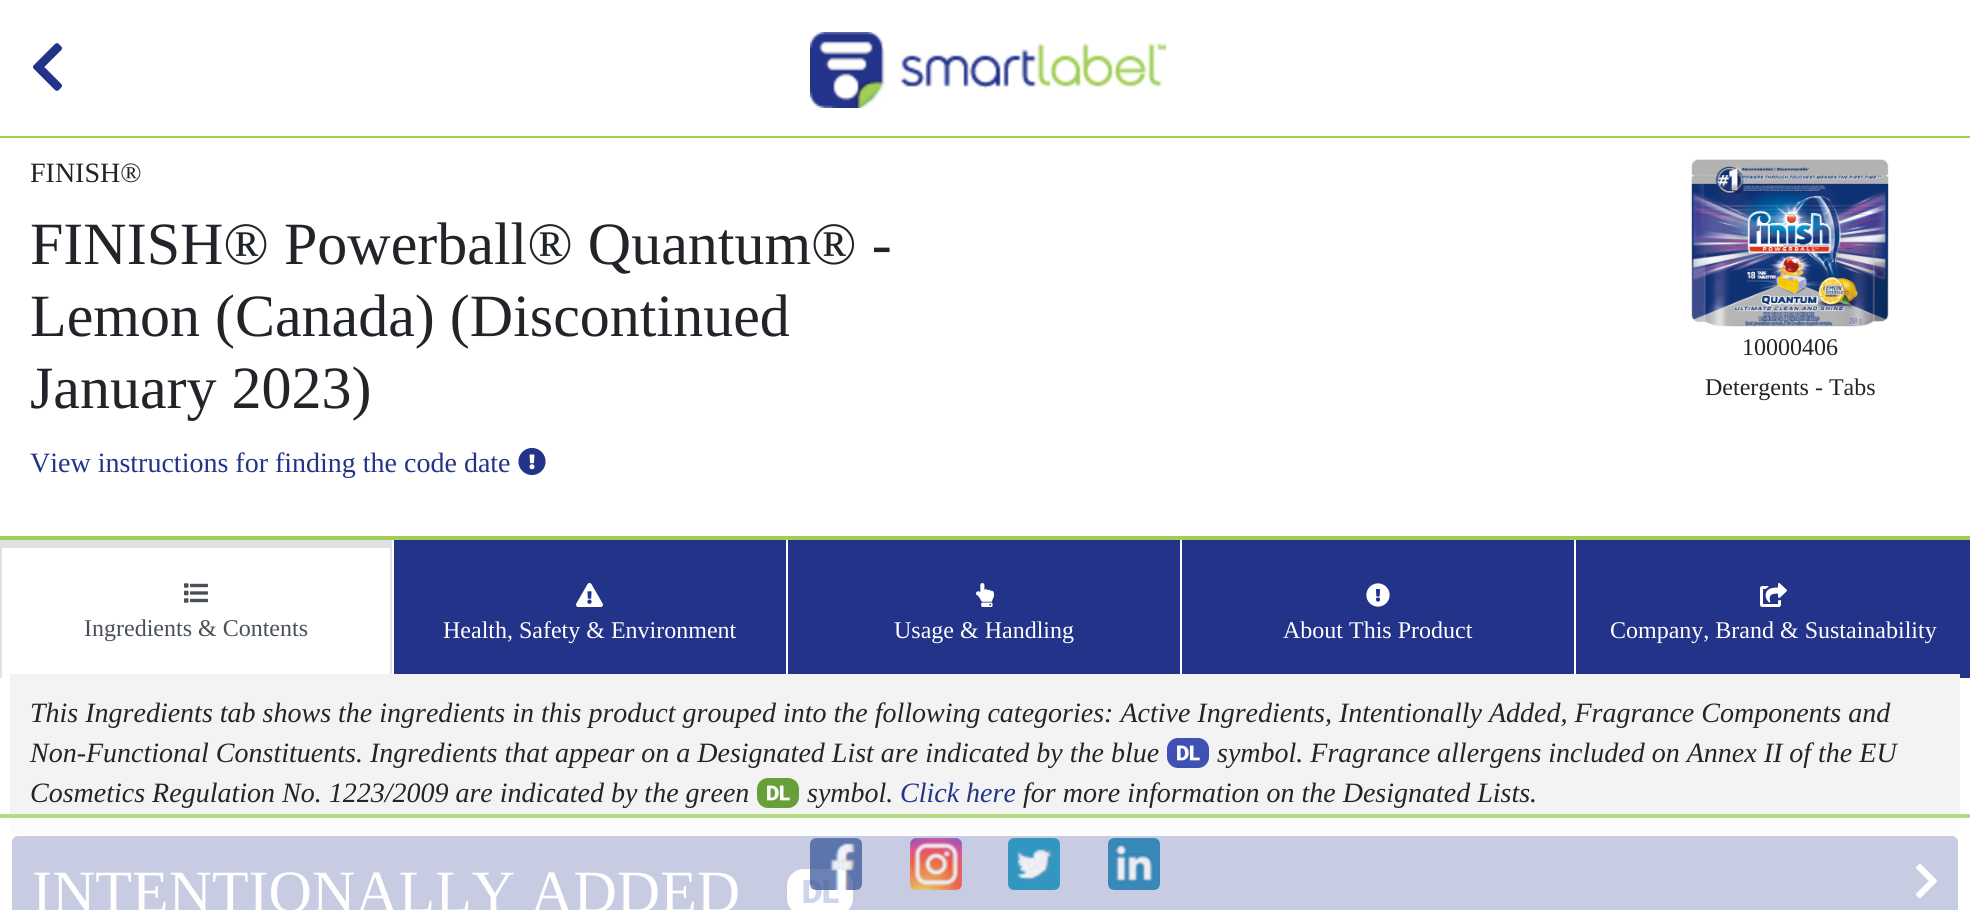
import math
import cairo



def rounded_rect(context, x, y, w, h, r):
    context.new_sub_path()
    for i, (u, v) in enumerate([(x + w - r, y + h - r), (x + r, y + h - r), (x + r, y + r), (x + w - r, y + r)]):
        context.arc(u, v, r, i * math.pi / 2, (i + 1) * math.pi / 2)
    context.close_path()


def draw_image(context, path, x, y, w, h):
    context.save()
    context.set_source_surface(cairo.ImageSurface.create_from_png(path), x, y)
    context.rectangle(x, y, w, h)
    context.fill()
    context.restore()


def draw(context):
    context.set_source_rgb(1, 1, 1)
    context.paint()
    context.set_source_rgb(184 / 255, 218 / 255, 127 / 255)
    context.rectangle(0, 814, 1970, 4)
    context.fill()
    context.set_source_rgb(160 / 255, 205 / 255, 84 / 255)
    context.rectangle(0, 136, 1970, 2)
    context.fill()
    draw_image(context, "images/1.png", 33, 43, 29, 48)
    draw_image(context, "images/2.png", 810, 32, 356, 76)
    draw_image(context, "images/3.png", 518, 447, 28, 29)
    draw_image(context, "images/4.png", 1691, 159, 198, 168)
    context.rectangle(0, 536, 1970, 4)
    context.fill()
    context.set_source_rgb(222 / 255, 226 / 255, 230 / 255)
    context.rectangle(0, 540, 392, 8)
    context.fill()
    context.rectangle(390, 540, 2, 138)
    context.fill()
    context.rectangle(0, 540, 2, 138)
    context.fill()
    draw_image(context, "images/5.png", 184, 583, 24, 20)
    context.set_source_rgb(36 / 255, 51 / 255, 138 / 255)
    context.rectangle(394, 540, 392, 134)
    context.fill()
    draw_image(context, "images/6.png", 576, 583, 27, 24)
    context.rectangle(788, 540, 392, 134)
    context.fill()
    draw_image(context, "images/7.png", 976, 583, 18, 24)
    context.rectangle(1182, 540, 392, 134)
    context.fill()
    draw_image(context, "images/8.png", 1366, 583, 24, 24)
    context.rectangle(1576, 540, 394, 138)
    context.fill()
    draw_image(context, "images/9.png", 1760, 583, 27, 24)
    context.set_source_rgb(243 / 255, 243 / 255, 243 / 255)
    context.rectangle(10, 674, 1950, 140)
    context.fill()
    context.set_source_rgb(252 / 255, 252 / 255, 252 / 255)
    context.rectangle(10, 818, 1950, 16)
    context.fill()
    draw_image(context, "images/10.png", 1167, 738, 42, 30)
    draw_image(context, "images/11.png", 757, 778, 42, 30)
    context.set_source_rgb(200 / 255, 204 / 255, 226 / 255)
    context.new_path()
    context.move_to(18, 836)
    context.line_to(1952, 836)
    context.curve_to(1955.5, 836, 1958, 838.5, 1958, 842)
    context.line_to(1958, 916)
    context.line_to(12, 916)
    context.line_to(12, 842)
    context.curve_to(12, 838.5, 14.5, 836, 18, 836)
    context.close_path()
    context.fill()
    context.set_source_rgb(1, 1, 1)
    rounded_rect(context, 787, 869, 66, 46, 17)
    context.fill()
    draw_image(context, "images/12.png", 1916, 864, 21, 34)
    context.set_source_rgb(207 / 255, 212 / 255, 237 / 255)
    context.new_path()
    context.move_to(803.5, 903)
    context.line_to(803.5, 880)
    context.curve_to(807, 880, 811.5, 879, 815, 880.5)
    context.curve_to(825.5, 885, 823, 903, 811, 903)
    context.close_path()
    context.move_to(809, 884)
    context.line_to(809, 898.5)
    context.curve_to(810.5, 898.5, 812, 899, 813.5, 898)
    context.curve_to(817, 895.5, 817, 884, 810.5, 884)
    context.close_path()
    context.move_to(829, 898.5)
    context.line_to(838.5, 898.5)
    context.line_to(838.5, 903)
    context.line_to(823.5, 903)
    context.line_to(823.5, 880)
    context.line_to(829, 880)
    context.close_path()
    context.fill()
    draw_image(context, "images/13.png", 810, 838, 52, 52)
    draw_image(context, "images/14.png", 910, 838, 52, 52)
    draw_image(context, "images/15.png", 1008, 838, 52, 52)
    draw_image(context, "images/16.png", 1108, 838, 52, 52)
    context.select_font_face("Liberation Serif")
    context.set_font_size(28)
    context.set_source_rgb(33 / 255, 37 / 255, 41 / 255)
    context.move_to(30, 182)
    context.show_text("FINISH®")
    context.set_font_size(60)
    context.move_to(30, 264)
    context.show_text("FINISH® Powerball® Quantum® -")
    context.move_to(30, 336)
    context.show_text("Lemon (Canada) (Discontinued")
    context.move_to(30, 408)
    context.show_text("January 2023)")
    context.set_font_size(28)
    context.set_source_rgb(36 / 255, 51 / 255, 138 / 255)
    context.move_to(30, 472)
    context.show_text("View instructions for finding the code date")
    context.set_font_size(24)
    context.set_source_rgb(33 / 255, 37 / 255, 41 / 255)
    context.move_to(1742, 355)
    context.show_text("10000406")
    context.move_to(1705, 395)
    context.show_text("Detergents - Tabs")
    context.set_source_rgb(73 / 255, 80 / 255, 87 / 255)
    context.move_to(84, 636)
    context.show_text("Ingredients & Contents")
    context.set_source_rgb(1, 1, 1)
    context.move_to(443, 638)
    context.show_text("Health, Safety & Environment")
    context.move_to(894, 638)
    context.show_text("Usage & Handling")
    context.move_to(1283, 638)
    context.show_text("About This Product")
    context.move_to(1610, 638)
    context.show_text("Company, Brand & Sustainability")
    context.select_font_face("Liberation Serif", cairo.FontSlant.ITALIC)
    context.set_font_size(28)
    context.set_source_rgb(33 / 255, 37 / 255, 41 / 255)
    context.move_to(30, 722)
    context.show_text("This Ingredients tab shows the ingredients in this product grouped into the following categories: Active Ingredients, Intentionally Added, Fragrance Components and")
    context.move_to(30, 762)
    context.show_text("Non-Functional Constituents. Ingredients that appear on a Designated List are indicated by the blue")
    context.move_to(1217, 762)
    context.show_text("symbol. Fragrance allergens included on Annex II of the EU")
    context.move_to(30, 802)
    context.show_text("Cosmetics Regulation No. 1223/2009 are indicated by the green")
    context.move_to(807, 802)
    context.show_text("symbol.")
    context.set_source_rgb(36 / 255, 51 / 255, 138 / 255)
    context.move_to(900, 802)
    context.show_text("Click here")
    context.set_source_rgb(33 / 255, 37 / 255, 41 / 255)
    context.move_to(1023, 802)
    context.show_text("for more information on the Designated Lists.")
    context.select_font_face("Liberation Serif")
    context.set_font_size(60)
    context.set_source_rgb(1, 1, 1)
    context.move_to(32, 912)
    context.show_text("INTENTIONALLY ADDED")


surface = cairo.ImageSurface(cairo.Format.RGB24, 1970, 910)
context = cairo.Context(surface)
options = cairo.FontOptions()
options.set_hint_metrics(cairo.HintMetrics.OFF)
options.set_hint_style(cairo.HintStyle.NONE)
context.set_font_options(options)
context.set_miter_limit(4)
draw(context)
surface.write_to_png("out.png")
